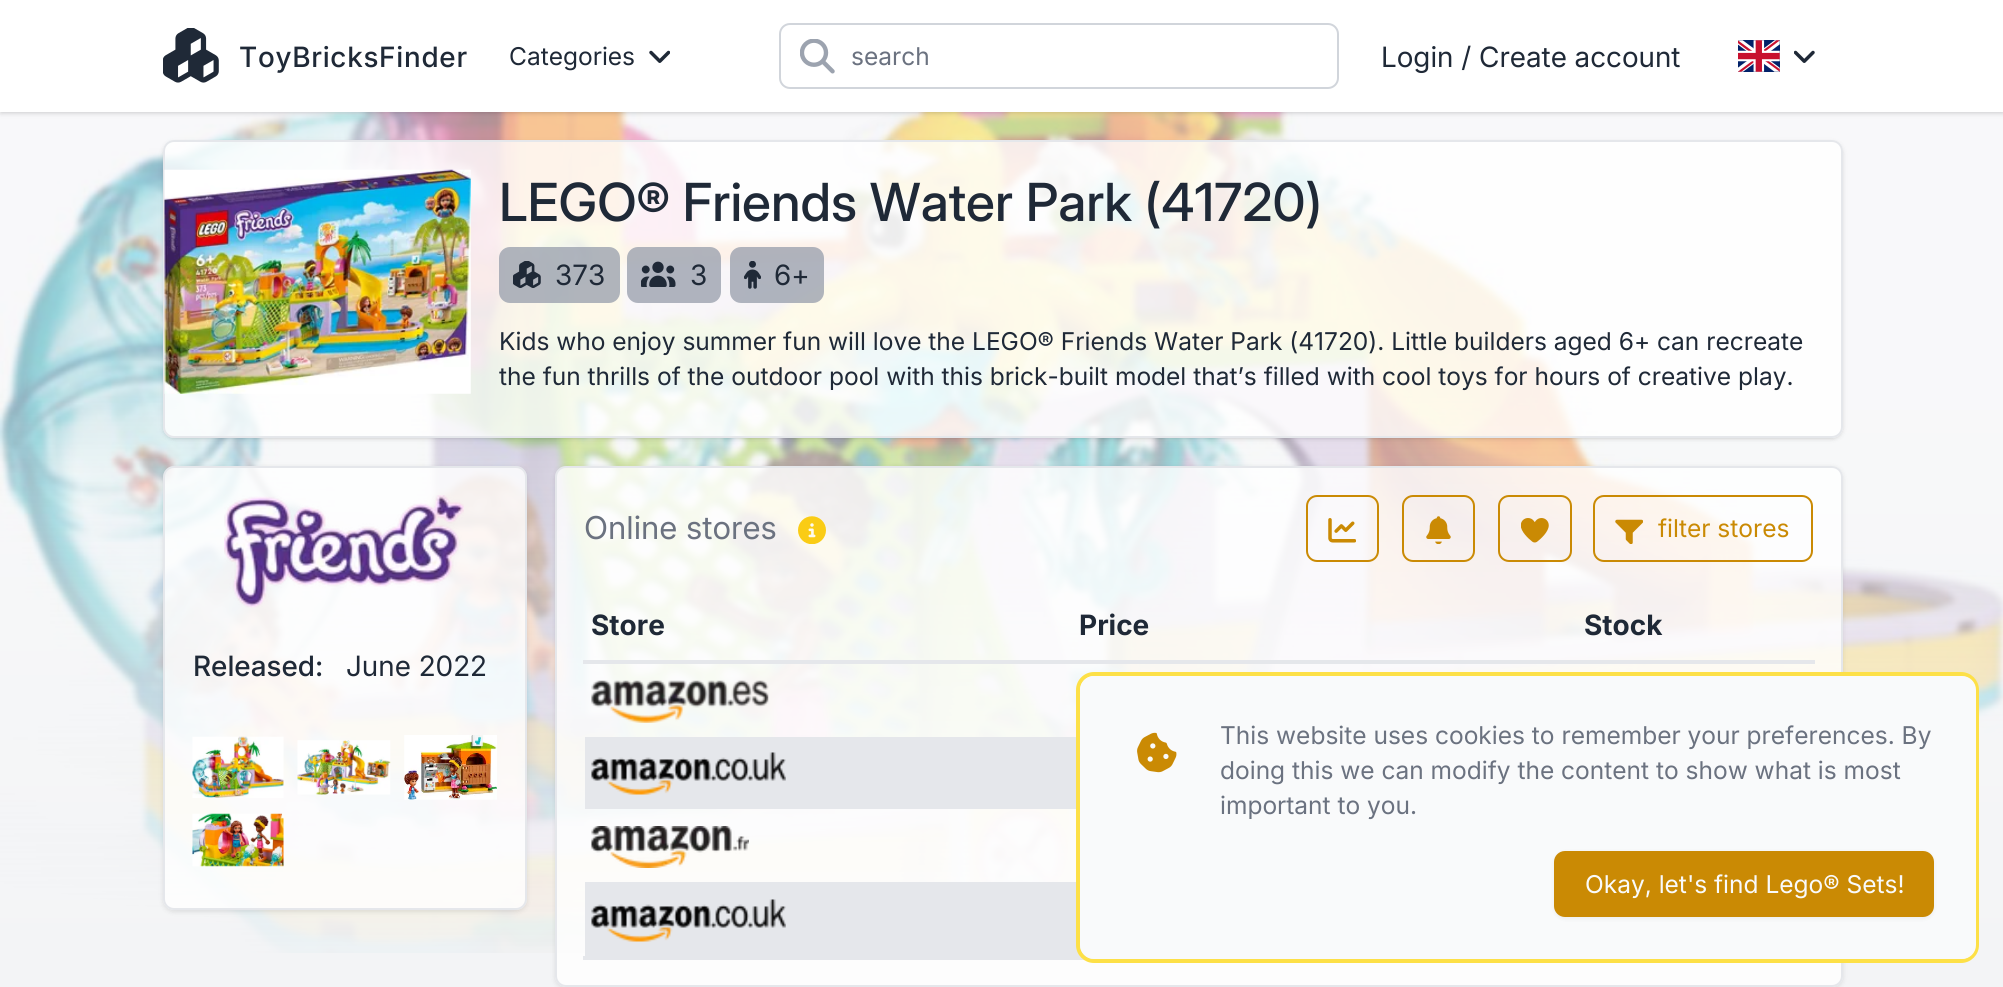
import math
import cairo



def draw_spaced(context, x, y, s, letter, word):
    context.move_to(x, y)
    for ch in s:
        context.show_text(ch)
        context.rel_move_to(letter + word * (ch == ' '), 0)


def rounded_rect(context, x, y, w, h, r):
    context.new_sub_path()
    for i, (u, v) in enumerate([(x + w - r, y + h - r), (x + r, y + h - r), (x + r, y + r), (x + w - r, y + r)]):
        context.arc(u, v, r, i * math.pi / 2, (i + 1) * math.pi / 2)
    context.close_path()


def draw_shadow(context, x, y, w, h, r, blur, alpha):
    context.push_group_with_content(cairo.Content.ALPHA)
    context.set_operator(cairo.Operator.SOURCE)
    for i in range(15, -16, -2):
        e = blur * i / 6
        if min(w, h) + 2 * e > 0:
            context.set_source_rgba(0, 0, 0, alpha * math.erfc((i - 1) / 8.5) / 2)
            rounded_rect(context, x - e, y - e, w + 2 * e, h + 2 * e, max(0, min(r + e + blur * .6, min(w, h) / 2 + e)))
            context.fill()
    context.mask(context.pop_group())


def draw_image(context, path, x, y, w, h):
    context.save()
    context.set_source_surface(cairo.ImageSurface.create_from_png(path), x, y)
    context.rectangle(x, y, w, h)
    context.fill()
    context.restore()


def draw(context):
    context.set_source_rgb(243 / 255, 244 / 255, 246 / 255)
    context.paint()
    draw_image(context, "images/6.png", 0, 112, 2003, 841)
    context.set_source_rgb(0, 0, 0)
    draw_shadow(context, 2, 4, 2000, 108, 0, 2, 0.1)
    draw_shadow(context, 0, 2, 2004, 112, 0, 2.5, 0.1)
    context.set_source_rgb(1, 1, 1)
    context.rectangle(0, 0, 2003, 112)
    context.fill()
    draw_image(context, "images/1.png", 163, 28, 56, 55)
    draw_image(context, "images/2.png", 649, 50, 21, 13)
    rounded_rect(context, 780, 24, 558, 64, 10)
    context.set_source_rgb(209 / 255, 213 / 255, 219 / 255)
    context.stroke()
    draw_image(context, "images/3.png", 800, 39, 35, 35)
    draw_image(context, "images/4.png", 1738, 40, 42, 32)
    draw_image(context, "images/5.png", 1794, 50, 21, 13)
    context.save()
    context.set_fill_rule(cairo.FillRule.EVEN_ODD)
    context.new_path()
    context.move_to(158, 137)
    context.line_to(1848, 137)
    context.line_to(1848, 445)
    context.line_to(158, 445)
    context.close_path()
    context.move_to(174, 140)
    context.line_to(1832, 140)
    context.curve_to(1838, 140, 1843, 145, 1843, 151)
    context.line_to(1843, 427)
    context.curve_to(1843, 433, 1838, 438, 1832, 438)
    context.line_to(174, 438)
    context.curve_to(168, 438, 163, 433, 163, 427)
    context.line_to(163, 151)
    context.curve_to(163, 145, 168, 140, 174, 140)
    context.close_path()
    context.clip()
    context.set_source_rgb(0, 0, 0)
    draw_shadow(context, 165, 144, 1676, 294, 9, 2, 0.1)
    context.restore()
    context.save()
    context.set_fill_rule(cairo.FillRule.EVEN_ODD)
    context.new_path()
    context.move_to(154, 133)
    context.line_to(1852, 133)
    context.line_to(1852, 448)
    context.line_to(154, 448)
    context.close_path()
    context.move_to(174, 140)
    context.line_to(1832, 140)
    context.curve_to(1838, 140, 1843, 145, 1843, 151)
    context.line_to(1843, 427)
    context.curve_to(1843, 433, 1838, 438, 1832, 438)
    context.line_to(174, 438)
    context.curve_to(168, 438, 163, 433, 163, 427)
    context.line_to(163, 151)
    context.curve_to(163, 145, 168, 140, 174, 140)
    context.close_path()
    context.clip()
    context.set_source_rgb(0, 0, 0)
    draw_shadow(context, 163, 142, 1680, 297, 11, 2.5, 0.1)
    context.restore()
    context.set_source_rgba(1, 1, 1, 0.8)
    rounded_rect(context, 164, 141, 1678, 296, 10)
    context.fill_preserve()
    context.set_source_rgb(229 / 255, 231 / 255, 235 / 255)
    context.stroke()
    draw_image(context, "images/7.png", 164, 169, 307, 225)
    context.set_source_rgba(156 / 255, 163 / 255, 175 / 255, 0.8)
    rounded_rect(context, 499, 247, 121, 56, 11)
    context.fill()
    draw_image(context, "images/8.png", 513, 261, 28, 27)
    rounded_rect(context, 627, 247, 94, 56, 11)
    context.fill()
    draw_image(context, "images/9.png", 641, 261, 35, 26)
    rounded_rect(context, 730, 247, 94, 56, 11)
    context.fill()
    draw_image(context, "images/10.png", 744, 261, 17, 28)
    context.save()
    context.set_fill_rule(cairo.FillRule.EVEN_ODD)
    context.new_path()
    context.move_to(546, 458)
    context.line_to(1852, 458)
    context.line_to(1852, 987)
    context.line_to(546, 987)
    context.close_path()
    context.move_to(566, 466)
    context.line_to(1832, 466)
    context.curve_to(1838, 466, 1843, 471, 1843, 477)
    context.line_to(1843, 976)
    context.curve_to(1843, 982, 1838, 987, 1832, 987)
    context.line_to(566, 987)
    context.curve_to(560, 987, 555, 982, 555, 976)
    context.line_to(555, 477)
    context.curve_to(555, 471, 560, 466, 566, 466)
    context.close_path()
    context.clip()
    context.set_source_rgb(0, 0, 0)
    draw_shadow(context, 555, 467, 1288, 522, 11, 2.5, 0.1)
    context.restore()
    context.set_source_rgba(1, 1, 1, 0.8)
    rounded_rect(context, 556, 467, 1286, 519, 10)
    context.fill_preserve()
    context.set_source_rgb(229 / 255, 231 / 255, 235 / 255)
    context.stroke()
    draw_image(context, "images/11.png", 798, 516, 28, 28)
    rounded_rect(context, 1307, 496, 71, 65, 10)
    context.set_source_rgb(202 / 255, 138 / 255, 4 / 255)
    context.stroke()
    draw_image(context, "images/12.png", 1328, 518, 28, 25)
    rounded_rect(context, 1403, 496, 71, 65, 10)
    context.stroke()
    draw_image(context, "images/13.png", 1426, 516, 25, 28)
    rounded_rect(context, 1499, 496, 72, 65, 10)
    context.stroke()
    draw_image(context, "images/14.png", 1521, 518, 28, 25)
    rounded_rect(context, 1594, 496, 218, 65, 10)
    context.stroke()
    draw_image(context, "images/15.png", 1615, 519, 28, 25)
    context.set_source_rgb(229 / 255, 231 / 255, 235 / 255)
    context.rectangle(583, 660, 1232, 4)
    context.fill()
    draw_image(context, "images/16.png", 591, 680, 178, 43)
    context.rectangle(585, 737, 491, 72)
    context.fill()
    draw_image(context, "images/17.png", 591, 752, 195, 43)
    draw_image(context, "images/18.png", 591, 826, 158, 42)
    context.rectangle(585, 882, 501, 74)
    context.fill()
    draw_image(context, "images/17.png", 591, 899, 195, 43)
    context.rectangle(583, 956, 511, 4)
    context.fill()
    context.save()
    context.set_fill_rule(cairo.FillRule.EVEN_ODD)
    context.new_path()
    context.move_to(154, 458)
    context.line_to(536, 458)
    context.line_to(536, 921)
    context.line_to(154, 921)
    context.close_path()
    context.move_to(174, 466)
    context.line_to(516, 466)
    context.curve_to(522, 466, 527, 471, 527, 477)
    context.line_to(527, 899)
    context.curve_to(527, 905, 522, 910, 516, 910)
    context.line_to(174, 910)
    context.curve_to(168, 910, 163, 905, 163, 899)
    context.line_to(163, 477)
    context.curve_to(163, 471, 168, 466, 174, 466)
    context.close_path()
    context.clip()
    context.set_source_rgb(0, 0, 0)
    draw_shadow(context, 163, 467, 364, 445, 11, 2.5, 0.1)
    context.restore()
    context.set_source_rgba(1, 1, 1, 0.8)
    rounded_rect(context, 164, 467, 362, 442, 10)
    context.fill_preserve()
    context.set_source_rgb(229 / 255, 231 / 255, 235 / 255)
    context.stroke()
    draw_image(context, "images/19.png", 224, 495, 240, 113)
    draw_image(context, "images/20.png", 192, 736, 92, 62)
    draw_image(context, "images/21.png", 297, 740, 94, 55)
    draw_image(context, "images/22.png", 404, 735, 93, 65)
    draw_image(context, "images/23.png", 192, 813, 92, 54)
    rounded_rect(context, 1078, 674, 899, 287, 16)
    context.set_source_rgb(253 / 255, 224 / 255, 71 / 255)
    context.set_line_width(4)
    context.stroke()
    context.set_source_rgb(249 / 255, 250 / 255, 251 / 255)
    rounded_rect(context, 1080, 676, 896, 283, 14)
    context.fill()
    draw_image(context, "images/24.png", 1137, 732, 40, 41)
    context.set_source_rgb(0, 0, 0)
    draw_shadow(context, 1554, 852, 380, 67, 11, 2, 0.05)
    context.set_source_rgb(202 / 255, 138 / 255, 4 / 255)
    rounded_rect(context, 1555, 852, 378, 64, 10)
    context.fill_preserve()
    context.set_line_width(2)
    context.stroke()
    context.select_font_face("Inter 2 Medium")
    context.set_font_size(28)
    context.set_source_rgb(31 / 255, 41 / 255, 55 / 255)
    draw_spaced(context, 239, 67, "ToyBricksFinder", 0.75, 0)
    context.select_font_face("Inter 2")
    context.set_font_size(24.5)
    context.move_to(509, 65)
    context.show_text("Categories")
    context.set_source_rgb(107 / 255, 114 / 255, 128 / 255)
    context.move_to(851, 65)
    context.show_text("search")
    context.select_font_face("Inter")
    context.set_font_size(28)
    context.set_source_rgb(31 / 255, 41 / 255, 55 / 255)
    context.move_to(1381, 67)
    context.show_text("Login / Create account")
    context.select_font_face("Inter Medium")
    context.set_font_size(52.5)
    context.move_to(499, 221)
    context.show_text("LEGO® Friends Water Park (41720)")
    context.select_font_face("Inter")
    context.set_font_size(28)
    context.move_to(555, 285)
    context.show_text("373")
    context.select_font_face("Inter 2")
    context.move_to(690, 285)
    context.show_text("3")
    context.select_font_face("Inter")
    context.move_to(774, 285)
    context.show_text("6+")
    context.select_font_face("Inter 2")
    context.set_font_size(24.5)
    context.move_to(499, 350)
    context.show_text("Kids who enjoy summer fun will love the LEGO® Friends Water Park (41720). Little builders aged 6+ can recreate")
    context.move_to(499, 385)
    context.show_text("the fun thrills of the outdoor pool with this brick-built model that’s filled with cool toys for hours of creative play.")
    context.select_font_face("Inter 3")
    context.set_font_size(31.5)
    context.set_source_rgb(107 / 255, 114 / 255, 128 / 255)
    context.move_to(584, 539)
    context.show_text("Online stores")
    context.select_font_face("Inter 2")
    context.set_font_size(24.5)
    context.set_source_rgb(202 / 255, 138 / 255, 4 / 255)
    context.move_to(1658, 537)
    context.show_text("filter stores")
    context.select_font_face("Inter", cairo.FontSlant.NORMAL, cairo.FontWeight.BOLD)
    context.set_font_size(28)
    context.set_source_rgb(31 / 255, 41 / 255, 55 / 255)
    context.move_to(591, 635)
    context.show_text("Store")
    context.move_to(1079, 635)
    context.show_text("Price")
    context.move_to(1584, 635)
    context.show_text("Stock")
    context.select_font_face("Inter 2 Medium")
    context.move_to(193, 676)
    context.show_text("Released:")
    context.select_font_face("Inter")
    context.move_to(346, 676)
    context.show_text("June 2022")
    context.select_font_face("Inter 2")
    context.set_font_size(24.5)
    context.set_source_rgb(107 / 255, 114 / 255, 128 / 255)
    context.move_to(1220, 744)
    context.show_text("This website uses cookies to remember your preferences. By")
    context.move_to(1220, 779)
    context.show_text("doing this we can modify the content to show what is most")
    context.move_to(1220, 814)
    context.show_text("important to you.")
    context.set_source_rgb(249 / 255, 250 / 255, 251 / 255)
    context.move_to(1585, 893)
    context.show_text("Okay, let's find Lego® Sets!")


surface = cairo.ImageSurface(cairo.Format.RGB24, 2003, 987)
context = cairo.Context(surface)
options = cairo.FontOptions()
options.set_hint_metrics(cairo.HintMetrics.OFF)
options.set_hint_style(cairo.HintStyle.NONE)
context.set_font_options(options)
context.set_miter_limit(4)
draw(context)
surface.write_to_png("out.png")
